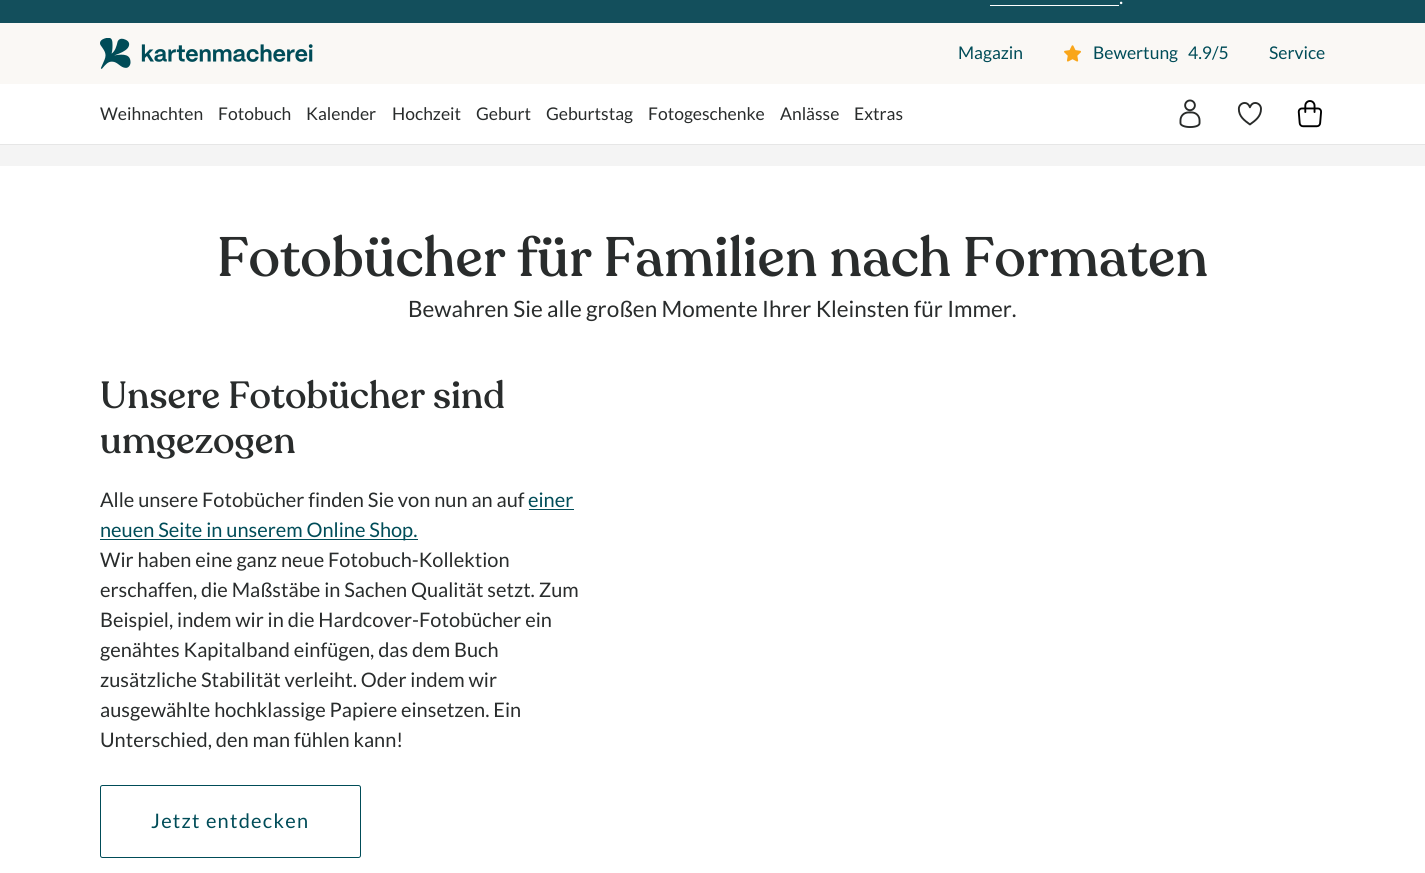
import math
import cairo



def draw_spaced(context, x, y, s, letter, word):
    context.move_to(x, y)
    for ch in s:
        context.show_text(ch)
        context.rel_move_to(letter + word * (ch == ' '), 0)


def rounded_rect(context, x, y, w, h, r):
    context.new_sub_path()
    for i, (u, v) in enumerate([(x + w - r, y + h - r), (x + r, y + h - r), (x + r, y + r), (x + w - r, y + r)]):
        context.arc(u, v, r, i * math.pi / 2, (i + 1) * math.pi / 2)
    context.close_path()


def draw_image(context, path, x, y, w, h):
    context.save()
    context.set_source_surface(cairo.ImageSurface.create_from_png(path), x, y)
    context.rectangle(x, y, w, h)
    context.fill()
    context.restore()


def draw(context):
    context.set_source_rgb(1, 1, 1)
    context.paint()
    context.set_source_rgb(19 / 255, 79 / 255, 92 / 255)
    context.rectangle(0, 0, 1425, 23)
    context.fill()
    context.set_source_rgb(1, 1, 1)
    context.rectangle(990, 5, 129, 1)
    context.fill()
    context.set_source_rgb(250 / 255, 248 / 255, 245 / 255)
    context.rectangle(0, 23, 1425, 61)
    context.fill()
    draw_image(context, "images/1.png", 100, 38, 213, 31)
    draw_image(context, "images/2.png", 1064, 45, 17, 17)
    context.set_source_rgb(230 / 255, 230 / 255, 230 / 255)
    context.rectangle(0, 144, 1425, 1)
    context.fill()
    draw_image(context, "images/3.png", 1179, 99, 22, 29)
    draw_image(context, "images/4.png", 1237, 102, 25, 24)
    draw_image(context, "images/5.png", 1297, 100, 25, 28)
    context.set_source_rgb(244 / 255, 244 / 255, 244 / 255)
    context.rectangle(0, 145, 1425, 21)
    context.fill()
    context.set_source_rgb(0, 76 / 255, 88 / 255)
    context.rectangle(529, 509, 45, 1)
    context.fill()
    context.rectangle(100, 539, 318, 1)
    context.fill()
    rounded_rect(context, 100.5, 785.5, 260, 72, 2)
    context.set_line_width(1)
    context.stroke()
    context.select_font_face("Lato")
    context.set_font_size(20)
    context.set_source_rgb(1, 1, 1)
    context.move_to(1119, 4)
    context.show_text(".")
    context.set_font_size(17.5)
    context.set_source_rgb(0, 76 / 255, 88 / 255)
    context.move_to(958, 59)
    context.show_text("Magazin")
    context.move_to(1093, 59)
    context.show_text("Bewertung")
    context.move_to(1188, 59)
    context.show_text("4.9/5")
    context.move_to(1269, 59)
    context.show_text("Service")
    context.set_source_rgb(41 / 255, 44 / 255, 44 / 255)
    context.move_to(100, 120)
    context.show_text("Weihnachten")
    context.move_to(218, 120)
    context.show_text("Fotobuch")
    context.move_to(306, 120)
    context.show_text("Kalender")
    context.move_to(392, 120)
    context.show_text("Hochzeit")
    context.move_to(476, 120)
    context.show_text("Geburt")
    context.move_to(546, 120)
    context.show_text("Geburtstag")
    context.move_to(648, 120)
    context.show_text("Fotogeschenke")
    context.move_to(780, 120)
    context.show_text("Anlässe")
    context.move_to(854, 120)
    context.show_text("Extras")
    context.select_font_face("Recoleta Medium")
    context.set_font_size(55)
    context.move_to(217, 276)
    context.show_text("Fotobücher für Familien nach Formaten")
    context.select_font_face("Lato")
    context.set_font_size(22.5)
    context.move_to(408, 317)
    context.show_text("Bewahren Sie alle großen Momente Ihrer Kleinsten für Immer.")
    context.select_font_face("Recoleta Medium")
    context.set_font_size(37.5)
    context.move_to(100, 408)
    context.show_text("Unsere Fotobücher sind")
    context.move_to(100, 453)
    context.show_text("umgezogen")
    context.select_font_face("Lato")
    context.set_font_size(20)
    context.move_to(100, 507)
    context.show_text("Alle unsere Fotobücher finden Sie von nun an auf")
    context.set_source_rgb(0, 76 / 255, 88 / 255)
    context.move_to(528, 507)
    context.show_text("einer")
    context.move_to(100, 537)
    context.show_text("neuen Seite in unserem Online Shop.")
    context.set_source_rgb(41 / 255, 44 / 255, 44 / 255)
    context.move_to(100, 567)
    context.show_text("Wir haben eine ganz neue Fotobuch-Kollektion")
    context.move_to(100, 597)
    context.show_text("erschaffen, die Maßstäbe in Sachen Qualität setzt. Zum")
    context.move_to(100, 627)
    context.show_text("Beispiel, indem wir in die Hardcover-Fotobücher ein")
    context.move_to(100, 657)
    context.show_text("genähtes Kapitalband einfügen, das dem Buch")
    context.move_to(100, 687)
    context.show_text("zusätzliche Stabilität verleiht. Oder indem wir")
    context.move_to(100, 717)
    context.show_text("ausgewählte hochklassige Papiere einsetzen. Ein")
    context.move_to(100, 747)
    context.show_text("Unterschied, den man fühlen kann!")
    context.set_source_rgb(0, 76 / 255, 88 / 255)
    draw_spaced(context, 151, 828, "Jetzt entdecken", 1.25, 0)


surface = cairo.ImageSurface(cairo.Format.RGB24, 1425, 873)
context = cairo.Context(surface)
options = cairo.FontOptions()
options.set_hint_metrics(cairo.HintMetrics.OFF)
options.set_hint_style(cairo.HintStyle.NONE)
context.set_font_options(options)
context.set_miter_limit(4)
draw(context)
surface.write_to_png("out.png")
